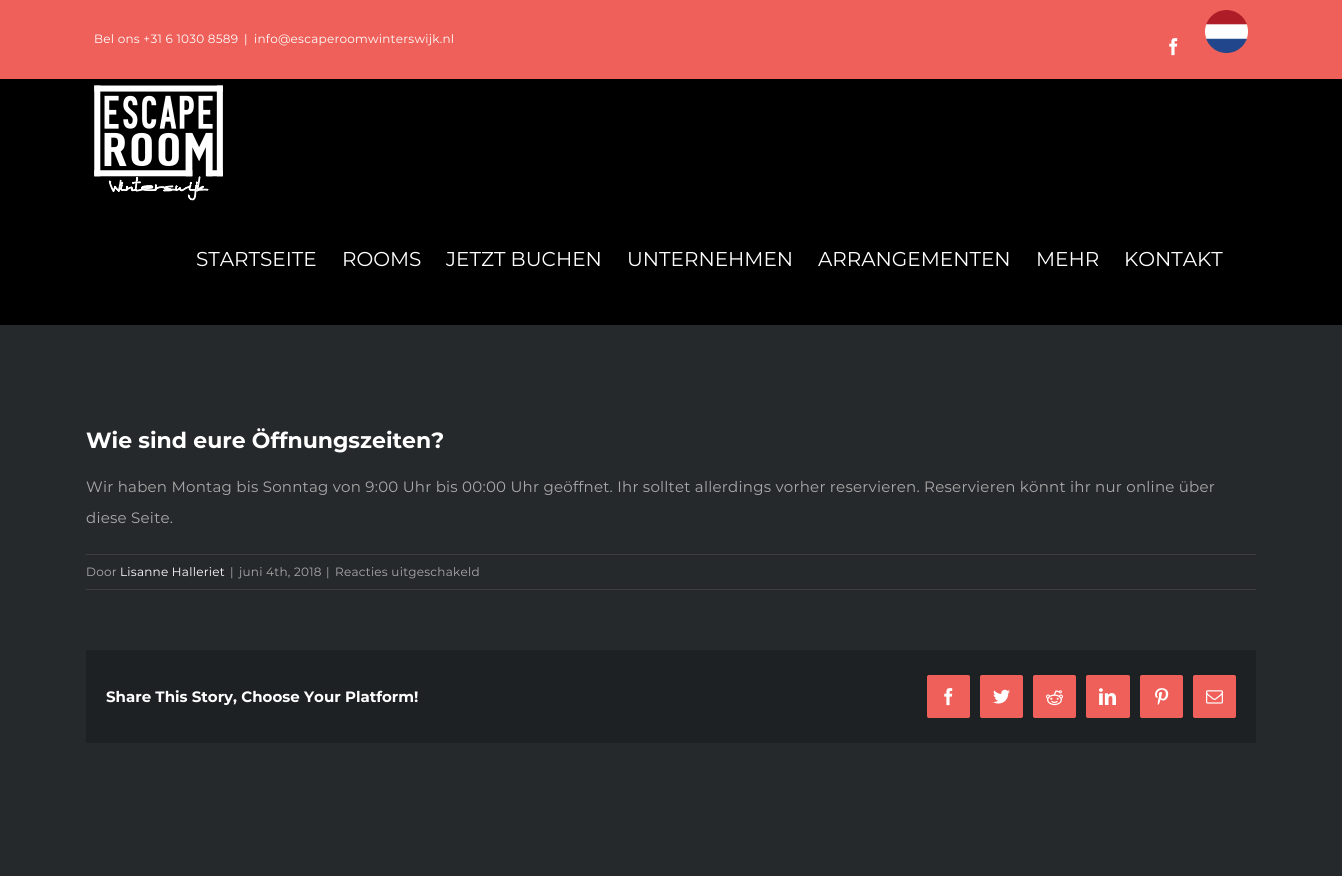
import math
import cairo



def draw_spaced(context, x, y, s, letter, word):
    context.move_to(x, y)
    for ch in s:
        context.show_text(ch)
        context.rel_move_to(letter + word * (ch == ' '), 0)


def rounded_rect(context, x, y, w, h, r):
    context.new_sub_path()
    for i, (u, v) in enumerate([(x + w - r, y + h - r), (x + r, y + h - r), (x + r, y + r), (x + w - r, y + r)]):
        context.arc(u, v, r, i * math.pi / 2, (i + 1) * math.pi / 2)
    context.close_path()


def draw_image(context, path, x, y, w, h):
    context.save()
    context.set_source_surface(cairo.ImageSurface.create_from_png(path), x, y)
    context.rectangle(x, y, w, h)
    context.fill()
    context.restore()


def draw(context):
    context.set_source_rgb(37 / 255, 41 / 255, 43 / 255)
    context.paint()
    context.set_source_rgb(238 / 255, 96 / 255, 89 / 255)
    context.rectangle(0, 0, 1342, 79)
    context.fill()
    draw_image(context, "images/1.png", 1169, 38, 9, 18)
    draw_image(context, "images/2.png", 1205, 10, 43, 43)
    context.set_source_rgb(0, 0, 0)
    context.rectangle(0, 79, 1342, 246)
    context.fill()
    draw_image(context, "images/3.png", 94, 85, 129, 116)
    context.set_source_rgb(62 / 255, 62 / 255, 62 / 255)
    context.rectangle(86, 554, 1170, 1)
    context.fill()
    context.rectangle(86, 589, 1170, 1)
    context.fill()
    context.set_source_rgb(30 / 255, 33 / 255, 35 / 255)
    context.rectangle(86, 650, 1170, 93)
    context.fill()
    context.set_source_rgb(238 / 255, 96 / 255, 89 / 255)
    rounded_rect(context, 927.5, 675.5, 42, 42, 1.5)
    context.fill_preserve()
    context.set_line_width(1)
    context.stroke()
    draw_image(context, "images/1.png", 944, 688, 9, 18)
    rounded_rect(context, 980.5, 675.5, 42, 42, 1.5)
    context.fill_preserve()
    context.stroke()
    draw_image(context, "images/4.png", 993, 689, 17, 15)
    rounded_rect(context, 1033.5, 675.5, 42, 42, 1.5)
    context.fill_preserve()
    context.stroke()
    draw_image(context, "images/5.png", 1046, 690, 17, 16)
    rounded_rect(context, 1086.5, 675.5, 43, 42, 1.5)
    context.fill_preserve()
    context.stroke()
    draw_image(context, "images/6.png", 1099, 688, 17, 17)
    rounded_rect(context, 1140.5, 675.5, 42, 42, 1.5)
    context.fill_preserve()
    context.stroke()
    draw_image(context, "images/7.png", 1155, 688, 14, 17)
    rounded_rect(context, 1193.5, 675.5, 42, 42, 1.5)
    context.fill_preserve()
    context.stroke()
    draw_image(context, "images/8.png", 1206, 690, 17, 14)
    context.select_font_face("Montserrat")
    context.set_font_size(12)
    context.set_source_rgb(1, 1, 1)
    draw_spaced(context, 94, 43, "Bel ons +31 6 1030 8589", 0.25, 0)
    draw_spaced(context, 244, 43, "|", 0.25, 0)
    draw_spaced(context, 254, 43, "info@escaperoomwinterswijk.nl", 0.25, 0)
    context.set_font_size(20)
    context.move_to(196, 266)
    context.show_text("STARTSEITE")
    context.move_to(342, 266)
    context.show_text("ROOMS")
    context.move_to(446, 266)
    context.show_text("JETZT BUCHEN")
    context.move_to(627, 266)
    context.show_text("UNTERNEHMEN")
    context.move_to(818, 266)
    context.show_text("ARRANGEMENTEN")
    context.move_to(1036, 266)
    context.show_text("MEHR")
    context.move_to(1124, 266)
    context.show_text("KONTAKT")
    context.select_font_face("Montserrat", cairo.FontSlant.NORMAL, cairo.FontWeight.BOLD)
    context.set_font_size(22)
    context.move_to(86, 448)
    context.show_text("Wie sind eure Öffnungszeiten?")
    context.select_font_face("Montserrat")
    context.set_font_size(15)
    context.set_source_rgb(170 / 255, 169 / 255, 169 / 255)
    draw_spaced(context, 86, 492, "Wir haben Montag bis Sonntag von 9:00 Uhr bis 00:00 Uhr geöffnet. Ihr solltet allerdings vorher reservieren. Reservieren könnt ihr nur online über", 0.25, 0)
    draw_spaced(context, 86, 523, "diese Seite.", 0.25, 0)
    context.set_font_size(12)
    draw_spaced(context, 86, 576, "Door", 0.25, 0)
    context.set_source_rgb(1, 1, 1)
    draw_spaced(context, 120, 576, "Lisanne Halleriet", 0.25, 0)
    context.set_source_rgb(170 / 255, 169 / 255, 169 / 255)
    draw_spaced(context, 230, 576, "|", 0.25, 0)
    draw_spaced(context, 239, 576, "juni 4th, 2018", 0.25, 0)
    draw_spaced(context, 326, 576, "|", 0.25, 0)
    draw_spaced(context, 335, 576, "Reacties uitgeschakeld", 0.25, 0)
    context.select_font_face("Montserrat", cairo.FontSlant.NORMAL, cairo.FontWeight.BOLD)
    context.set_font_size(15)
    context.set_source_rgb(1, 1, 1)
    context.move_to(106, 702)
    context.show_text("Share This Story, Choose Your Platform!")


surface = cairo.ImageSurface(cairo.Format.RGB24, 1342, 876)
context = cairo.Context(surface)
options = cairo.FontOptions()
options.set_hint_metrics(cairo.HintMetrics.OFF)
options.set_hint_style(cairo.HintStyle.NONE)
context.set_font_options(options)
context.set_miter_limit(4)
draw(context)
surface.write_to_png("out.png")
